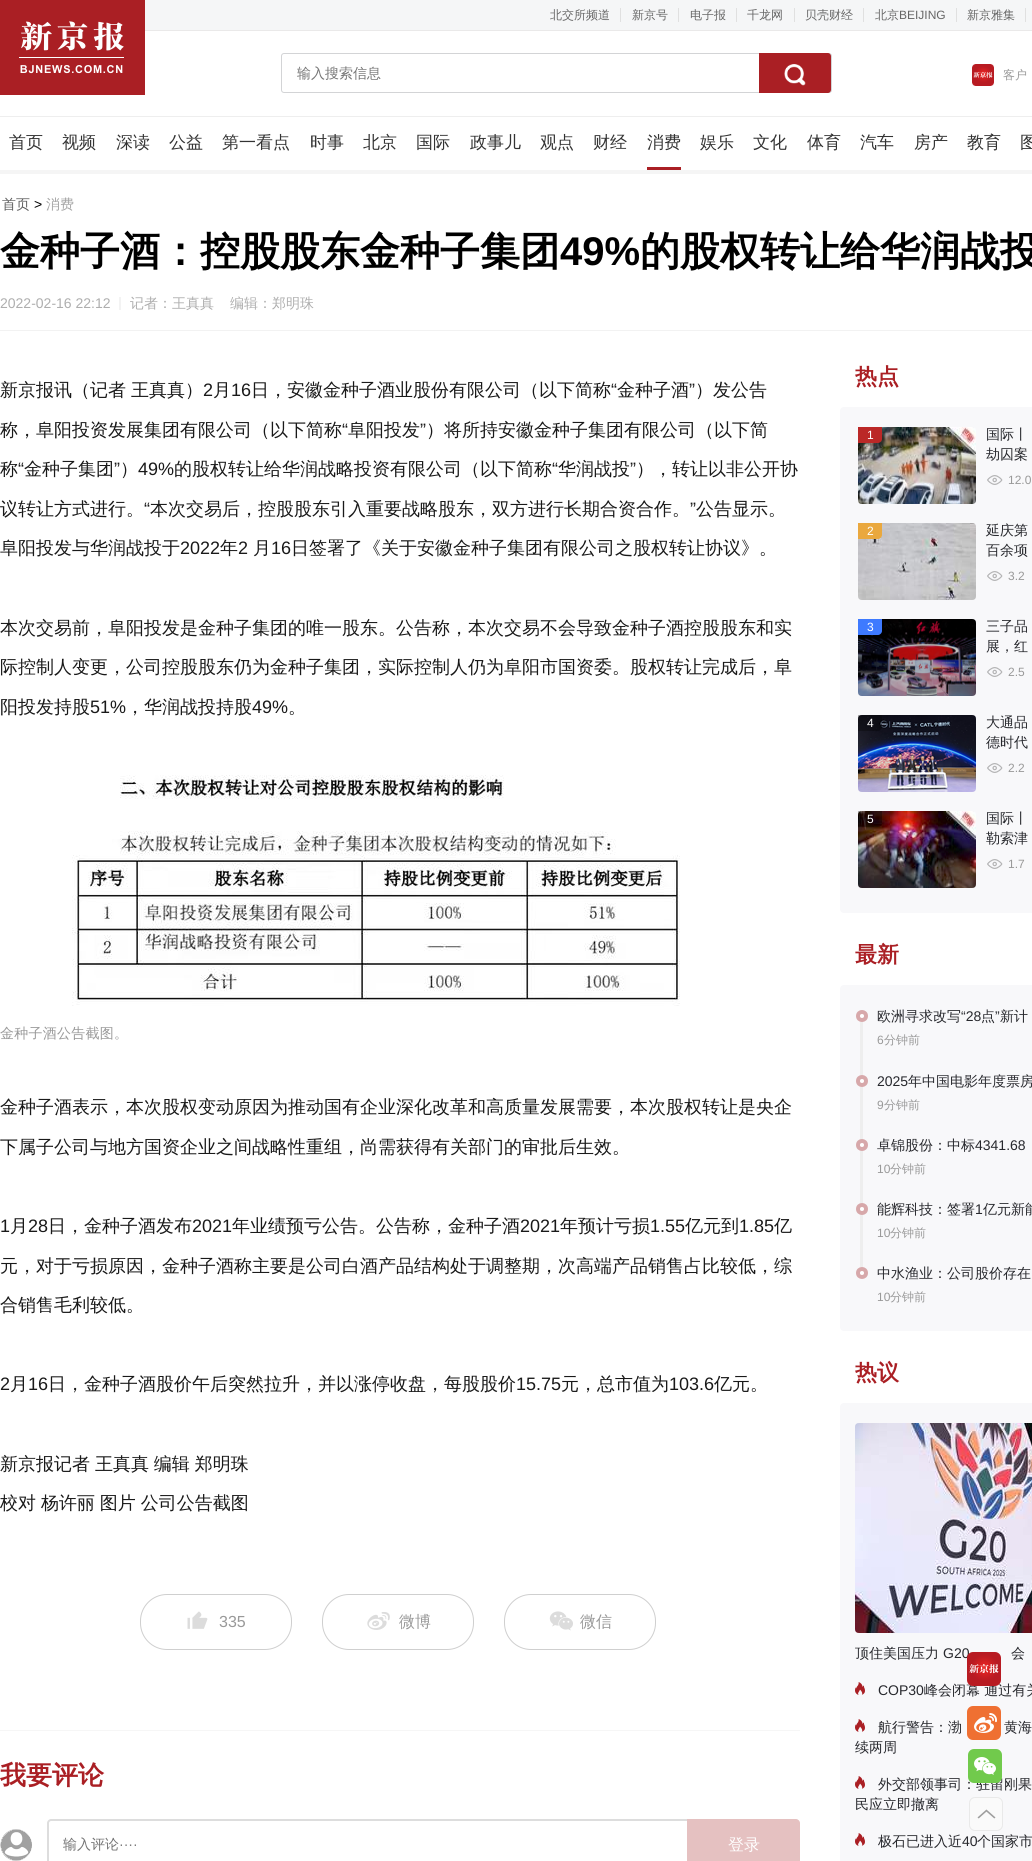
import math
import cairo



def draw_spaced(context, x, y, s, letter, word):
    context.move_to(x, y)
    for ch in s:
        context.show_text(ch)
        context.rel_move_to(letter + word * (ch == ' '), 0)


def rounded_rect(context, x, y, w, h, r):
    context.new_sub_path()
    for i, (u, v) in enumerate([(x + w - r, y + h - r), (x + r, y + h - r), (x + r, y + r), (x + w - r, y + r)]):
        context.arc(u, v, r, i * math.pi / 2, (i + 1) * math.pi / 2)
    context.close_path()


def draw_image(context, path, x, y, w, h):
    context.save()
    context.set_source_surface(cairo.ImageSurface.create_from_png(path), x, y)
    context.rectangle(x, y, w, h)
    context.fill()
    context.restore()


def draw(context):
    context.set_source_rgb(1, 1, 1)
    context.paint()
    context.set_source_rgb(245 / 255, 246 / 255, 247 / 255)
    context.rectangle(145, 0, 887, 30)
    context.fill()
    context.set_source_rgb(234 / 255, 233 / 255, 233 / 255)
    context.rectangle(145, 30, 887, 1)
    context.fill()
    context.set_source_rgb(224 / 255, 224 / 255, 224 / 255)
    context.rectangle(620, 8, 1, 14)
    context.fill()
    context.rectangle(678, 8, 1, 14)
    context.fill()
    context.rectangle(736, 8, 1, 14)
    context.fill()
    context.rectangle(794, 8, 1, 14)
    context.fill()
    context.rectangle(863, 8, 1, 14)
    context.fill()
    context.rectangle(956, 8, 1, 14)
    context.fill()
    context.rectangle(1025, 8, 1, 14)
    context.fill()
    context.set_source_rgb(238 / 255, 238 / 255, 238 / 255)
    context.rectangle(0, 116, 1032, 1)
    context.fill()
    draw_image(context, "images/1.png", 0, 0, 145, 95)
    rounded_rect(context, 281.5, 53.5, 550, 39, 2.5)
    context.set_source_rgb(211 / 255, 212 / 255, 214 / 255)
    context.set_line_width(1)
    context.stroke()
    context.set_source_rgb(170 / 255, 31 / 255, 36 / 255)
    context.new_path()
    context.move_to(759, 53)
    context.line_to(828, 53)
    context.curve_to(829.5, 53, 831, 54.5, 831, 56)
    context.line_to(831, 90)
    context.curve_to(831, 91.5, 829.5, 93, 828, 93)
    context.line_to(759, 93)
    context.close_path()
    context.fill()
    draw_image(context, "images/2.png", 784, 64, 22, 22)
    draw_image(context, "images/3.png", 972, 64, 22, 22)
    context.set_source_rgb(245 / 255, 245 / 255, 245 / 255)
    context.rectangle(0, 170, 1032, 4)
    context.fill()
    context.set_source_rgb(170 / 255, 31 / 255, 36 / 255)
    context.rectangle(647, 167, 34, 3)
    context.fill()
    context.set_source_rgb(242 / 255, 242 / 255, 242 / 255)
    context.rectangle(0, 330, 1032, 1)
    context.fill()
    context.set_source_rgb(243 / 255, 243 / 255, 243 / 255)
    context.rectangle(119, 297, 2, 13)
    context.fill()
    draw_image(context, "images/4.png", 72, 775, 608, 231)
    context.set_source_rgb(246 / 255, 246 / 255, 246 / 255)
    context.rectangle(0, 1730, 800, 1)
    context.fill()
    rounded_rect(context, 140.5, 1594.5, 151, 55, 26.5)
    context.set_source_rgb(207 / 255, 207 / 255, 207 / 255)
    context.stroke()
    draw_image(context, "images/5.png", 187, 1611, 21, 18)
    rounded_rect(context, 322.5, 1594.5, 151, 55, 26.5)
    context.stroke()
    draw_image(context, "images/6.png", 367, 1612, 23, 18)
    rounded_rect(context, 504.5, 1594.5, 151, 55, 26.5)
    context.stroke()
    draw_image(context, "images/7.png", 549, 1611, 24, 20)
    draw_image(context, "images/8.png", 0, 1829, 32, 32)
    context.set_source_rgb(221 / 255, 221 / 255, 221 / 255)
    context.set_fill_rule(cairo.FillRule.EVEN_ODD)
    context.new_path()
    context.move_to(51, 1819)
    context.line_to(687, 1819)
    context.line_to(687, 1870)
    context.line_to(51, 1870)
    context.curve_to(49, 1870, 47, 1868, 47, 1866)
    context.line_to(47, 1823)
    context.curve_to(47, 1821, 49, 1819, 51, 1819)
    context.close_path()
    context.move_to(51, 1821)
    context.line_to(687, 1821)
    context.line_to(687, 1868)
    context.line_to(51, 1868)
    context.curve_to(50, 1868, 49, 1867, 49, 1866)
    context.line_to(49, 1823)
    context.curve_to(49, 1822, 50, 1821, 51, 1821)
    context.close_path()
    context.fill()
    context.set_source_rgb(229 / 255, 193 / 255, 193 / 255)
    context.new_path()
    context.move_to(687, 1819)
    context.line_to(796, 1819)
    context.curve_to(798, 1819, 800, 1821, 800, 1823)
    context.line_to(800, 1861)
    context.curve_to(800, 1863, 798, 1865, 796, 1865)
    context.line_to(687, 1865)
    context.close_path()
    context.fill()
    context.set_source_rgb(248 / 255, 248 / 255, 250 / 255)
    rounded_rect(context, 840, 407, 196, 506, 4)
    context.fill()
    draw_image(context, "images/9.png", 858, 427, 118, 77)
    context.set_source_rgb(187 / 255, 40 / 255, 39 / 255)
    context.new_path()
    context.move_to(858, 427)
    context.line_to(882, 427)
    context.line_to(882, 439)
    context.curve_to(882, 441, 880, 443, 878, 443)
    context.line_to(858, 443)
    context.close_path()
    context.fill()
    draw_image(context, "images/10.png", 987, 475, 16, 10)
    draw_image(context, "images/11.png", 858, 523, 118, 77)
    context.set_source_rgb(234 / 255, 168 / 255, 62 / 255)
    context.new_path()
    context.move_to(858, 523)
    context.line_to(882, 523)
    context.line_to(882, 535)
    context.curve_to(882, 537, 880, 539, 878, 539)
    context.line_to(858, 539)
    context.close_path()
    context.fill()
    draw_image(context, "images/10.png", 987, 571, 16, 10)
    draw_image(context, "images/12.png", 858, 619, 118, 77)
    context.set_source_rgb(62 / 255, 122 / 255, 1)
    context.new_path()
    context.move_to(858, 619)
    context.line_to(882, 619)
    context.line_to(882, 631)
    context.curve_to(882, 633, 880, 635, 878, 635)
    context.line_to(858, 635)
    context.close_path()
    context.fill()
    draw_image(context, "images/10.png", 987, 667, 16, 10)
    draw_image(context, "images/13.png", 858, 715, 118, 77)
    context.set_source_rgba(0, 0, 0, 0.3)
    context.new_path()
    context.move_to(858, 715)
    context.line_to(882, 715)
    context.line_to(882, 727)
    context.curve_to(882, 729, 880, 731, 878, 731)
    context.line_to(858, 731)
    context.close_path()
    context.fill()
    draw_image(context, "images/10.png", 987, 763, 16, 10)
    draw_image(context, "images/14.png", 858, 811, 118, 77)
    context.new_path()
    context.move_to(858, 811)
    context.line_to(882, 811)
    context.line_to(882, 823)
    context.curve_to(882, 825, 880, 827, 878, 827)
    context.line_to(858, 827)
    context.close_path()
    context.fill()
    draw_image(context, "images/10.png", 987, 859, 16, 10)
    context.set_source_rgb(248 / 255, 248 / 255, 250 / 255)
    rounded_rect(context, 840, 985, 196, 346, 4)
    context.fill()
    context.set_source_rgb(238 / 255, 238 / 255, 238 / 255)
    context.rectangle(860, 1010, 3, 257)
    context.fill()
    context.set_source_rgb(1, 1, 1)
    context.arc(862, 1016, 4, 0, 2 * math.pi)
    context.fill_preserve()
    context.set_source_rgb(215 / 255, 168 / 255, 170 / 255)
    context.set_line_width(4)
    context.stroke()
    context.set_source_rgb(1, 1, 1)
    context.arc(862, 1081, 4, 0, 2 * math.pi)
    context.fill_preserve()
    context.set_source_rgb(215 / 255, 168 / 255, 170 / 255)
    context.stroke()
    context.set_source_rgb(1, 1, 1)
    context.arc(862, 1145, 4, 0, 2 * math.pi)
    context.fill_preserve()
    context.set_source_rgb(215 / 255, 168 / 255, 170 / 255)
    context.stroke()
    context.set_source_rgb(1, 1, 1)
    context.arc(862, 1209, 4, 0, 2 * math.pi)
    context.fill_preserve()
    context.set_source_rgb(215 / 255, 168 / 255, 170 / 255)
    context.stroke()
    context.set_source_rgb(1, 1, 1)
    context.arc(862, 1273, 4, 0, 2 * math.pi)
    context.fill_preserve()
    context.set_source_rgb(215 / 255, 168 / 255, 170 / 255)
    context.stroke()
    context.set_source_rgb(248 / 255, 248 / 255, 250 / 255)
    rounded_rect(context, 840, 1403, 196, 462, 4)
    context.fill()
    draw_image(context, "images/15.png", 855, 1423, 177, 210)
    draw_image(context, "images/16.png", 855, 1682, 10, 13)
    draw_image(context, "images/16.png", 855, 1719, 10, 13)
    draw_image(context, "images/16.png", 855, 1776, 10, 13)
    draw_image(context, "images/16.png", 855, 1833, 10, 13)
    draw_image(context, "images/18.png", 967, 1706, 34, 34)
    draw_image(context, "images/20.png", 969, 1797, 34, 34)
    context.select_font_face("WenQuanYi Zen Hei Medium")
    context.set_font_size(12)
    context.set_source_rgb(102 / 255, 102 / 255, 102 / 255)
    context.move_to(550, 19)
    context.show_text("北交所频道")
    context.move_to(632, 19)
    context.show_text("新京号")
    context.move_to(690, 19)
    context.show_text("电子报")
    context.move_to(747, 19)
    context.show_text("千龙网")
    context.move_to(805, 19)
    context.show_text("贝壳财经")
    context.move_to(875, 19)
    context.show_text("北京")
    context.select_font_face("Liberation Sans")
    context.move_to(899, 19)
    context.show_text("BEIJING")
    context.select_font_face("WenQuanYi Zen Hei Medium")
    context.move_to(967, 19)
    context.show_text("新京雅集")
    context.set_font_size(14)
    context.set_source_rgb(117 / 255, 117 / 255, 117 / 255)
    context.move_to(297, 78)
    context.show_text("输入搜索信息")
    context.set_font_size(12)
    context.set_source_rgb(153 / 255, 153 / 255, 153 / 255)
    context.move_to(1003, 79)
    context.show_text("客户")
    context.set_font_size(17)
    context.set_source_rgb(51 / 255, 51 / 255, 51 / 255)
    context.move_to(9, 148)
    context.show_text("首页")
    context.move_to(62, 148)
    context.show_text("视频")
    context.move_to(116, 148)
    context.show_text("深读")
    context.move_to(169, 148)
    context.show_text("公益")
    context.move_to(222, 148)
    context.show_text("第一看点")
    context.move_to(310, 148)
    context.show_text("时事")
    context.move_to(363, 148)
    context.show_text("北京")
    context.move_to(416, 148)
    context.show_text("国际")
    context.move_to(470, 148)
    context.show_text("政事儿")
    context.move_to(540, 148)
    context.show_text("观点")
    context.move_to(593, 148)
    context.show_text("财经")
    context.move_to(647, 148)
    context.show_text("消费")
    context.move_to(700, 148)
    context.show_text("娱乐")
    context.move_to(753, 148)
    context.show_text("文化")
    context.move_to(807, 148)
    context.show_text("体育")
    context.move_to(860, 148)
    context.show_text("汽车")
    context.move_to(914, 148)
    context.show_text("房产")
    context.move_to(967, 148)
    context.show_text("教育")
    context.move_to(1020, 148)
    context.show_text("图")
    context.set_font_size(14)
    context.set_source_rgb(94 / 255, 94 / 255, 94 / 255)
    context.move_to(2, 209)
    context.show_text("首页")
    context.select_font_face("Liberation Sans")
    context.set_source_rgb(0, 0, 0)
    context.move_to(34, 209)
    context.show_text(">")
    context.select_font_face("WenQuanYi Zen Hei Medium")
    context.set_source_rgb(166 / 255, 166 / 255, 166 / 255)
    context.move_to(46, 209)
    context.show_text("消费")
    context.select_font_face("WenQuanYi Zen Hei", cairo.FontSlant.NORMAL, cairo.FontWeight.BOLD)
    context.set_font_size(40)
    context.set_source_rgb(0, 0, 0)
    context.move_to(0, 265)
    context.show_text("金种子酒：控股股东金种子集团")
    context.select_font_face("Liberation Sans", cairo.FontSlant.NORMAL, cairo.FontWeight.BOLD)
    context.move_to(560, 265)
    context.show_text("49%")
    context.select_font_face("WenQuanYi Zen Hei", cairo.FontSlant.NORMAL, cairo.FontWeight.BOLD)
    context.move_to(640, 265)
    context.show_text("的股权转让给华润战投")
    context.select_font_face("Liberation Sans")
    context.set_font_size(14)
    context.set_source_rgb(174 / 255, 174 / 255, 174 / 255)
    context.move_to(0, 308)
    context.show_text("2022-02-16 22:12")
    context.select_font_face("WenQuanYi Zen Hei Medium")
    context.move_to(130, 308)
    context.show_text("记者：王真真")
    context.move_to(230, 308)
    context.show_text("编辑：郑明珠")
    context.set_font_size(18)
    context.set_source_rgb(25 / 255, 25 / 255, 25 / 255)
    draw_spaced(context, 0, 396, "新京报讯（记者 王真真）", 0, -0.5)
    context.select_font_face("Liberation Sans")
    context.move_to(203, 396)
    context.show_text("2")
    context.select_font_face("WenQuanYi Zen Hei Medium")
    context.move_to(213, 396)
    context.show_text("月")
    context.select_font_face("Liberation Sans")
    context.move_to(231, 396)
    context.show_text("16")
    context.select_font_face("WenQuanYi Zen Hei Medium")
    context.move_to(251, 396)
    context.show_text("日，安徽金种子酒业股份有限公司（以下简称")
    context.select_font_face("Liberation Sans")
    context.move_to(611, 396)
    context.show_text("“")
    context.select_font_face("WenQuanYi Zen Hei Medium")
    context.move_to(617, 396)
    context.show_text("金种子酒")
    context.select_font_face("Liberation Sans")
    context.move_to(689, 396)
    context.show_text("”")
    context.select_font_face("WenQuanYi Zen Hei Medium")
    context.move_to(695, 396)
    context.show_text("）发公告")
    context.move_to(0, 436)
    context.show_text("称，阜阳投资发展集团有限公司（以下简称")
    context.select_font_face("Liberation Sans")
    context.move_to(342, 436)
    context.show_text("“")
    context.select_font_face("WenQuanYi Zen Hei Medium")
    context.move_to(348, 436)
    context.show_text("阜阳投发")
    context.select_font_face("Liberation Sans")
    context.move_to(420, 436)
    context.show_text("”")
    context.select_font_face("WenQuanYi Zen Hei Medium")
    context.move_to(426, 436)
    context.show_text("）将所持安徽金种子集团有限公司（以下简")
    context.move_to(0, 475)
    context.show_text("称")
    context.select_font_face("Liberation Sans")
    context.move_to(18, 475)
    context.show_text("“")
    context.select_font_face("WenQuanYi Zen Hei Medium")
    context.move_to(24, 475)
    context.show_text("金种子集团")
    context.select_font_face("Liberation Sans")
    context.move_to(114, 475)
    context.show_text("”")
    context.select_font_face("WenQuanYi Zen Hei Medium")
    context.move_to(120, 475)
    context.show_text("）")
    context.select_font_face("Liberation Sans")
    context.move_to(138, 475)
    context.show_text("49%")
    context.select_font_face("WenQuanYi Zen Hei Medium")
    context.move_to(174, 475)
    context.show_text("的股权转让给华润战略投资有限公司（以下简称")
    context.select_font_face("Liberation Sans")
    context.move_to(552, 475)
    context.show_text("“")
    context.select_font_face("WenQuanYi Zen Hei Medium")
    context.move_to(558, 475)
    context.show_text("华润战投")
    context.select_font_face("Liberation Sans")
    context.move_to(630, 475)
    context.show_text("”")
    context.select_font_face("WenQuanYi Zen Hei Medium")
    context.move_to(636, 475)
    context.show_text("），转让以非公开协")
    context.move_to(0, 515)
    context.show_text("议转让方式进行。")
    context.select_font_face("Liberation Sans")
    context.move_to(144, 515)
    context.show_text("“")
    context.select_font_face("WenQuanYi Zen Hei Medium")
    context.move_to(150, 515)
    context.show_text("本次交易后，控股股东引入重要战略股东，双方进行长期合资合作。")
    context.select_font_face("Liberation Sans")
    context.move_to(690, 515)
    context.show_text("”")
    context.select_font_face("WenQuanYi Zen Hei Medium")
    context.move_to(696, 515)
    context.show_text("公告显示。")
    context.move_to(0, 554)
    context.show_text("阜阳投发与华润战投于")
    context.select_font_face("Liberation Sans")
    context.move_to(180, 554)
    context.show_text("2022")
    context.select_font_face("WenQuanYi Zen Hei Medium")
    context.move_to(220, 554)
    context.show_text("年")
    context.select_font_face("Liberation Sans")
    context.move_to(238, 554)
    context.show_text("2")
    context.select_font_face("WenQuanYi Zen Hei Medium")
    context.move_to(253, 554)
    context.show_text("月")
    context.select_font_face("Liberation Sans")
    context.move_to(271, 554)
    context.show_text("16")
    context.select_font_face("WenQuanYi Zen Hei Medium")
    context.move_to(291, 554)
    context.show_text("日签署了《关于安徽金种子集团有限公司之股权转让协议》。")
    context.move_to(0, 634)
    context.show_text("本次交易前，阜阳投发是金种子集团的唯一股东。公告称，本次交易不会导致金种子酒控股股东和实")
    context.move_to(0, 673)
    context.show_text("际控制人变更，公司控股股东仍为金种子集团，实际控制人仍为阜阳市国资委。股权转让完成后，阜")
    context.move_to(0, 713)
    context.show_text("阳投发持股")
    context.select_font_face("Liberation Sans")
    context.move_to(90, 713)
    context.show_text("51%")
    context.select_font_face("WenQuanYi Zen Hei Medium")
    context.move_to(126, 713)
    context.show_text("，华润战投持股")
    context.select_font_face("Liberation Sans")
    context.move_to(252, 713)
    context.show_text("49%")
    context.select_font_face("WenQuanYi Zen Hei Medium")
    context.move_to(288, 713)
    context.show_text("。")
    context.set_font_size(14)
    context.set_source_rgb(153 / 255, 153 / 255, 153 / 255)
    draw_spaced(context, 0, 1038, "金种子酒公告截图。", 0.25, 0)
    context.set_font_size(18)
    context.set_source_rgb(25 / 255, 25 / 255, 25 / 255)
    context.move_to(0, 1113)
    context.show_text("金种子酒表示，本次股权变动原因为推动国有企业深化改革和高质量发展需要，本次股权转让是央企")
    context.move_to(0, 1153)
    context.show_text("下属子公司与地方国资企业之间战略性重组，尚需获得有关部门的审批后生效。")
    context.select_font_face("Liberation Sans")
    context.move_to(0, 1232)
    context.show_text("1")
    context.select_font_face("WenQuanYi Zen Hei Medium")
    context.move_to(10, 1232)
    context.show_text("月")
    context.select_font_face("Liberation Sans")
    context.move_to(28, 1232)
    context.show_text("28")
    context.select_font_face("WenQuanYi Zen Hei Medium")
    context.move_to(48, 1232)
    context.show_text("日，金种子酒发布")
    context.select_font_face("Liberation Sans")
    context.move_to(192, 1232)
    context.show_text("2021")
    context.select_font_face("WenQuanYi Zen Hei Medium")
    context.move_to(232, 1232)
    context.show_text("年业绩预亏公告。公告称，金种子酒")
    context.select_font_face("Liberation Sans")
    context.move_to(520, 1232)
    context.show_text("2021")
    context.select_font_face("WenQuanYi Zen Hei Medium")
    context.move_to(560, 1232)
    context.show_text("年预计亏损")
    context.select_font_face("Liberation Sans")
    context.move_to(650, 1232)
    context.show_text("1.55")
    context.select_font_face("WenQuanYi Zen Hei Medium")
    context.move_to(685, 1232)
    context.show_text("亿元到")
    context.select_font_face("Liberation Sans")
    context.move_to(739, 1232)
    context.show_text("1.85")
    context.select_font_face("WenQuanYi Zen Hei Medium")
    context.move_to(774, 1232)
    context.show_text("亿")
    context.move_to(0, 1272)
    context.show_text("元，对于亏损原因，金种子酒称主要是公司白酒产品结构处于调整期，次高端产品销售占比较低，综")
    context.move_to(0, 1311)
    context.show_text("合销售毛利较低。")
    context.select_font_face("Liberation Sans")
    context.move_to(0, 1390)
    context.show_text("2")
    context.select_font_face("WenQuanYi Zen Hei Medium")
    context.move_to(10, 1390)
    context.show_text("月")
    context.select_font_face("Liberation Sans")
    context.move_to(28, 1390)
    context.show_text("16")
    context.select_font_face("WenQuanYi Zen Hei Medium")
    context.move_to(48, 1390)
    context.show_text("日，金种子酒股价午后突然拉升，并以涨停收盘，每股股价")
    context.select_font_face("Liberation Sans")
    context.move_to(516, 1390)
    context.show_text("15.75")
    context.select_font_face("WenQuanYi Zen Hei Medium")
    context.move_to(561, 1390)
    context.show_text("元，总市值为")
    context.select_font_face("Liberation Sans")
    context.move_to(669, 1390)
    context.show_text("103.6")
    context.select_font_face("WenQuanYi Zen Hei Medium")
    context.move_to(714, 1390)
    context.show_text("亿元。")
    draw_spaced(context, 0, 1470, "新京报记者 王真真 编辑 郑明珠", 0, -0.5)
    draw_spaced(context, 0, 1509, "校对 杨许丽 图片 公司公告截图", 0, -0.5)
    context.select_font_face("Liberation Sans")
    context.set_font_size(16)
    context.set_source_rgb(153 / 255, 153 / 255, 153 / 255)
    context.move_to(219, 1627)
    context.show_text("335")
    context.select_font_face("WenQuanYi Zen Hei Medium")
    context.move_to(399, 1627)
    context.show_text("微博")
    context.move_to(580, 1627)
    context.show_text("微信")
    context.select_font_face("WenQuanYi Zen Hei", cairo.FontSlant.NORMAL, cairo.FontWeight.BOLD)
    context.set_font_size(26)
    context.set_source_rgb(170 / 255, 31 / 255, 36 / 255)
    context.move_to(0, 1784)
    context.show_text("我要评论")
    context.select_font_face("WenQuanYi Zen Hei Medium")
    context.set_font_size(14)
    context.set_source_rgb(117 / 255, 117 / 255, 117 / 255)
    context.move_to(63, 1849)
    context.show_text("输入评论")
    context.select_font_face("Liberation Sans")
    context.move_to(119, 1849)
    context.show_text("····")
    context.select_font_face("WenQuanYi Zen Hei Medium")
    context.set_font_size(16)
    context.set_source_rgb(1, 1, 1)
    context.move_to(728, 1850)
    context.show_text("登录")
    context.select_font_face("WenQuanYi Zen Hei", cairo.FontSlant.NORMAL, cairo.FontWeight.BOLD)
    context.set_font_size(22)
    context.set_source_rgb(170 / 255, 31 / 255, 36 / 255)
    context.move_to(855, 384)
    context.show_text("热点")
    context.select_font_face("Liberation Sans")
    context.set_font_size(12)
    context.set_source_rgb(1, 1, 1)
    context.move_to(867, 439)
    context.show_text("1")
    context.select_font_face("WenQuanYi Zen Hei Medium")
    context.set_font_size(14)
    context.set_source_rgb(39 / 255, 40 / 255, 45 / 255)
    context.move_to(986, 439)
    context.show_text("国际丨")
    context.move_to(986, 459)
    context.show_text("劫囚案")
    context.select_font_face("Liberation Sans")
    context.set_font_size(12)
    context.set_source_rgb(153 / 255, 153 / 255, 153 / 255)
    context.move_to(1008, 484)
    context.show_text("12.0")
    context.set_source_rgb(1, 1, 1)
    context.move_to(867, 535)
    context.show_text("2")
    context.select_font_face("WenQuanYi Zen Hei Medium")
    context.set_font_size(14)
    context.set_source_rgb(39 / 255, 40 / 255, 45 / 255)
    context.move_to(986, 535)
    context.show_text("延庆第")
    context.move_to(986, 555)
    context.show_text("百余项")
    context.select_font_face("Liberation Sans")
    context.set_font_size(12)
    context.set_source_rgb(153 / 255, 153 / 255, 153 / 255)
    context.move_to(1008, 580)
    context.show_text("3.2")
    context.set_source_rgb(1, 1, 1)
    context.move_to(867, 631)
    context.show_text("3")
    context.select_font_face("WenQuanYi Zen Hei Medium")
    context.set_font_size(14)
    context.set_source_rgb(39 / 255, 40 / 255, 45 / 255)
    context.move_to(986, 631)
    context.show_text("三子品")
    context.move_to(986, 651)
    context.show_text("展，红")
    context.select_font_face("Liberation Sans")
    context.set_font_size(12)
    context.set_source_rgb(153 / 255, 153 / 255, 153 / 255)
    context.move_to(1008, 676)
    context.show_text("2.5")
    context.set_source_rgb(1, 1, 1)
    context.move_to(867, 727)
    context.show_text("4")
    context.select_font_face("WenQuanYi Zen Hei Medium")
    context.set_font_size(14)
    context.set_source_rgb(39 / 255, 40 / 255, 45 / 255)
    context.move_to(986, 727)
    context.show_text("大通品")
    context.move_to(986, 747)
    context.show_text("德时代")
    context.select_font_face("Liberation Sans")
    context.set_font_size(12)
    context.set_source_rgb(153 / 255, 153 / 255, 153 / 255)
    context.move_to(1008, 772)
    context.show_text("2.2")
    context.set_source_rgb(1, 1, 1)
    context.move_to(867, 823)
    context.show_text("5")
    context.select_font_face("WenQuanYi Zen Hei Medium")
    context.set_font_size(14)
    context.set_source_rgb(39 / 255, 40 / 255, 45 / 255)
    context.move_to(986, 823)
    context.show_text("国际丨")
    context.move_to(986, 843)
    context.show_text("勒索津")
    context.select_font_face("Liberation Sans")
    context.set_font_size(12)
    context.set_source_rgb(153 / 255, 153 / 255, 153 / 255)
    context.move_to(1008, 868)
    context.show_text("1.7")
    context.select_font_face("WenQuanYi Zen Hei", cairo.FontSlant.NORMAL, cairo.FontWeight.BOLD)
    context.set_font_size(22)
    context.set_source_rgb(170 / 255, 31 / 255, 36 / 255)
    context.move_to(855, 962)
    context.show_text("最新")
    context.select_font_face("WenQuanYi Zen Hei Medium")
    context.set_font_size(14)
    context.set_source_rgb(39 / 255, 40 / 255, 45 / 255)
    context.move_to(877, 1021)
    context.show_text("欧洲寻求改写")
    context.select_font_face("Liberation Sans")
    context.move_to(961, 1021)
    context.show_text("“28")
    context.select_font_face("WenQuanYi Zen Hei Medium")
    context.move_to(981, 1021)
    context.show_text("点")
    context.select_font_face("Liberation Sans")
    context.move_to(995, 1021)
    context.show_text("”")
    context.select_font_face("WenQuanYi Zen Hei Medium")
    context.move_to(1000, 1021)
    context.show_text("新计")
    context.select_font_face("Liberation Sans")
    context.set_font_size(12)
    context.set_source_rgb(153 / 255, 153 / 255, 153 / 255)
    context.move_to(877, 1044)
    context.show_text("6")
    context.select_font_face("WenQuanYi Zen Hei Medium")
    context.move_to(884, 1044)
    context.show_text("分钟前")
    context.select_font_face("Liberation Sans")
    context.set_font_size(14)
    context.set_source_rgb(39 / 255, 40 / 255, 45 / 255)
    context.move_to(877, 1086)
    context.show_text("2025")
    context.select_font_face("WenQuanYi Zen Hei Medium")
    context.move_to(908, 1086)
    context.show_text("年中国电影年度票房")
    context.select_font_face("Liberation Sans")
    context.set_font_size(12)
    context.set_source_rgb(153 / 255, 153 / 255, 153 / 255)
    context.move_to(877, 1109)
    context.show_text("9")
    context.select_font_face("WenQuanYi Zen Hei Medium")
    context.move_to(884, 1109)
    context.show_text("分钟前")
    context.set_font_size(14)
    context.set_source_rgb(39 / 255, 40 / 255, 45 / 255)
    context.move_to(877, 1150)
    context.show_text("卓锦股份：中标")
    context.select_font_face("Liberation Sans")
    context.move_to(975, 1150)
    context.show_text("4341.68")
    context.set_font_size(12)
    context.set_source_rgb(153 / 255, 153 / 255, 153 / 255)
    context.move_to(877, 1173)
    context.show_text("10")
    context.select_font_face("WenQuanYi Zen Hei Medium")
    context.move_to(890, 1173)
    context.show_text("分钟前")
    context.set_font_size(14)
    context.set_source_rgb(39 / 255, 40 / 255, 45 / 255)
    context.move_to(877, 1214)
    context.show_text("能辉科技：签署")
    context.select_font_face("Liberation Sans")
    context.move_to(975, 1214)
    context.show_text("1")
    context.select_font_face("WenQuanYi Zen Hei Medium")
    context.move_to(983, 1214)
    context.show_text("亿元新能")
    context.select_font_face("Liberation Sans")
    context.set_font_size(12)
    context.set_source_rgb(153 / 255, 153 / 255, 153 / 255)
    context.move_to(877, 1237)
    context.show_text("10")
    context.select_font_face("WenQuanYi Zen Hei Medium")
    context.move_to(890, 1237)
    context.show_text("分钟前")
    context.set_font_size(14)
    context.set_source_rgb(39 / 255, 40 / 255, 45 / 255)
    context.move_to(877, 1278)
    context.show_text("中水渔业：公司股价存在")
    context.select_font_face("Liberation Sans")
    context.set_font_size(12)
    context.set_source_rgb(153 / 255, 153 / 255, 153 / 255)
    context.move_to(877, 1301)
    context.show_text("10")
    context.select_font_face("WenQuanYi Zen Hei Medium")
    context.move_to(890, 1301)
    context.show_text("分钟前")
    context.select_font_face("WenQuanYi Zen Hei", cairo.FontSlant.NORMAL, cairo.FontWeight.BOLD)
    context.set_font_size(22)
    context.set_source_rgb(170 / 255, 31 / 255, 36 / 255)
    context.move_to(855, 1380)
    context.show_text("热议")
    context.select_font_face("WenQuanYi Zen Hei Medium")
    context.set_font_size(14)
    context.set_source_rgb(39 / 255, 40 / 255, 45 / 255)
    context.move_to(855, 1658)
    context.show_text("顶住美国压力")
    context.select_font_face("Liberation Sans")
    context.move_to(943, 1658)
    context.show_text("G20")
    context.select_font_face("WenQuanYi Zen Hei Medium")
    context.move_to(1011, 1658)
    context.show_text("会")
    context.select_font_face("Liberation Sans")
    context.move_to(878, 1695)
    context.show_text("COP30")
    context.select_font_face("WenQuanYi Zen Hei Medium")
    context.move_to(924, 1695)
    context.show_text("峰会闭幕 通过有关")
    context.move_to(878, 1732)
    context.show_text("航行警告：渤")
    context.move_to(1004, 1732)
    context.show_text("黄海")
    context.move_to(855, 1752)
    context.show_text("续两周")
    context.move_to(878, 1789)
    context.show_text("外交部领事司：驻留刚果")
    context.move_to(855, 1809)
    context.show_text("民应立即撤离")
    context.move_to(878, 1846)
    context.show_text("极石已进入近")
    context.select_font_face("Liberation Sans")
    context.move_to(962, 1846)
    context.show_text("40")
    context.select_font_face("WenQuanYi Zen Hei Medium")
    context.move_to(977, 1846)
    context.show_text("个国家市")
    draw_image(context, "images/17.png", 967, 1652, 34, 34)
    draw_image(context, "images/19.png", 968, 1749, 34, 34)


surface = cairo.ImageSurface(cairo.Format.RGB24, 1032, 1861)
context = cairo.Context(surface)
options = cairo.FontOptions()
options.set_hint_metrics(cairo.HintMetrics.OFF)
options.set_hint_style(cairo.HintStyle.NONE)
context.set_font_options(options)
context.set_miter_limit(4)
draw(context)
surface.write_to_png("out.png")
